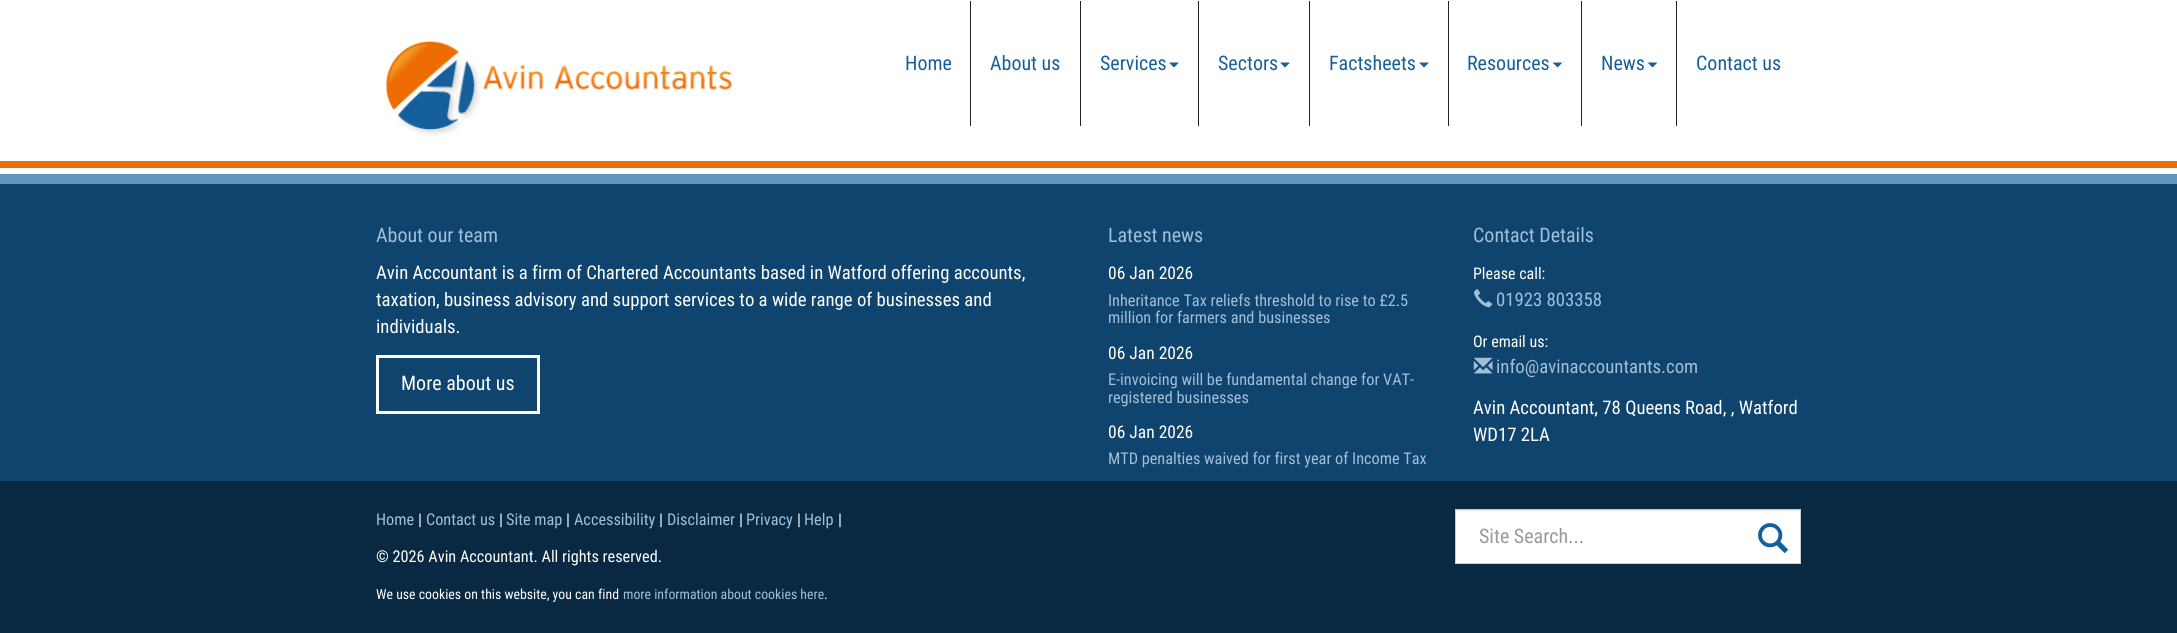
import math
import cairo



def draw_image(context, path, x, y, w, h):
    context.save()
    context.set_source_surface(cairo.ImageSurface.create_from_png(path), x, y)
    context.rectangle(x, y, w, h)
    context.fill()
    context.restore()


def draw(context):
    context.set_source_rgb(1, 1, 1)
    context.paint()
    draw_image(context, "images/1.png", 385, 41, 347, 95)
    context.set_source_rgb(34 / 255, 34 / 255, 34 / 255)
    context.rectangle(970, 1, 1, 125)
    context.fill()
    context.rectangle(1080, 1, 1, 125)
    context.fill()
    context.set_source_rgb(21 / 255, 96 / 255, 156 / 255)
    context.new_path()
    context.move_to(1169, 62.5)
    context.line_to(1179, 62.5)
    context.line_to(1174, 67.5)
    context.close_path()
    context.fill()
    context.set_source_rgb(34 / 255, 34 / 255, 34 / 255)
    context.rectangle(1198, 1, 1, 125)
    context.fill()
    context.set_source_rgb(21 / 255, 96 / 255, 156 / 255)
    context.new_path()
    context.move_to(1280, 62.5)
    context.line_to(1290, 62.5)
    context.line_to(1285, 67.5)
    context.close_path()
    context.fill()
    context.set_source_rgb(34 / 255, 34 / 255, 34 / 255)
    context.rectangle(1309, 1, 1, 125)
    context.fill()
    context.set_source_rgb(21 / 255, 96 / 255, 156 / 255)
    context.new_path()
    context.move_to(1419, 62.5)
    context.line_to(1429, 62.5)
    context.line_to(1424, 67.5)
    context.close_path()
    context.fill()
    context.set_source_rgb(34 / 255, 34 / 255, 34 / 255)
    context.rectangle(1448, 1, 1, 125)
    context.fill()
    context.set_source_rgb(21 / 255, 96 / 255, 156 / 255)
    context.new_path()
    context.move_to(1552.5, 62.5)
    context.line_to(1562.5, 62.5)
    context.line_to(1557.5, 67.5)
    context.close_path()
    context.fill()
    context.set_source_rgb(34 / 255, 34 / 255, 34 / 255)
    context.rectangle(1581, 1, 1, 125)
    context.fill()
    context.set_source_rgb(21 / 255, 96 / 255, 156 / 255)
    context.new_path()
    context.move_to(1647.5, 62.5)
    context.line_to(1657.5, 62.5)
    context.line_to(1652.5, 67.5)
    context.close_path()
    context.fill()
    context.set_source_rgb(34 / 255, 34 / 255, 34 / 255)
    context.rectangle(1676, 1, 1, 125)
    context.fill()
    context.set_source_rgb(237 / 255, 109 / 255, 4 / 255)
    context.rectangle(0, 161, 2177, 7)
    context.fill()
    context.set_source_rgb(15 / 255, 68 / 255, 111 / 255)
    context.rectangle(0, 184, 2177, 297)
    context.fill()
    context.set_source_rgb(99 / 255, 149 / 255, 189 / 255)
    context.rectangle(0, 174, 2177, 10)
    context.fill()
    context.rectangle(377.5, 356.5, 161, 56)
    context.set_source_rgb(1, 1, 1)
    context.set_line_width(3)
    context.stroke()
    draw_image(context, "images/2.png", 1474, 289, 19, 19)
    draw_image(context, "images/3.png", 1473, 357, 20, 17)
    context.set_source_rgb(9 / 255, 41 / 255, 66 / 255)
    context.rectangle(0, 481, 2177, 152)
    context.fill()
    context.set_source_rgb(1, 1, 1)
    context.rectangle(1456, 511, 344, 52)
    context.fill()
    context.set_source_rgb(236 / 255, 236 / 255, 236 / 255)
    context.rectangle(1456, 510, 344, 1)
    context.fill()
    context.rectangle(1455.5, 509.5, 345, 54)
    context.set_source_rgb(204 / 255, 204 / 255, 204 / 255)
    context.set_line_width(1)
    context.stroke()
    draw_image(context, "images/4.png", 1758, 523, 30, 30)
    context.select_font_face("Roboto Condensed")
    context.set_font_size(20)
    context.set_source_rgb(21 / 255, 96 / 255, 156 / 255)
    context.move_to(905, 70)
    context.show_text("Home")
    context.move_to(990, 70)
    context.show_text("About us")
    context.move_to(1100, 70)
    context.show_text("Services")
    context.move_to(1218, 70)
    context.show_text("Sectors")
    context.move_to(1329, 70)
    context.show_text("Factsheets")
    context.move_to(1467, 70)
    context.show_text("Resources")
    context.move_to(1601, 70)
    context.show_text("News")
    context.move_to(1696, 70)
    context.show_text("Contact us")
    context.set_source_rgb(161 / 255, 191 / 255, 215 / 255)
    context.move_to(376, 242)
    context.show_text("About our team")
    context.set_font_size(18.75)
    context.set_source_rgb(1, 1, 1)
    context.move_to(376, 279)
    context.show_text("Avin Accountant is a firm of Chartered Accountants based in Watford offering accounts,")
    context.move_to(376, 306)
    context.show_text("taxation, business advisory and support services to a wide range of businesses and")
    context.move_to(376, 333)
    context.show_text("individuals.")
    context.set_font_size(20)
    context.move_to(401, 390)
    context.show_text("More about us")
    context.set_source_rgb(161 / 255, 191 / 255, 215 / 255)
    context.move_to(1108, 242)
    context.show_text("Latest news")
    context.set_font_size(17.5)
    context.set_source_rgb(1, 1, 1)
    context.move_to(1108, 279)
    context.show_text("06 Jan 2026")
    context.set_font_size(16.25)
    context.set_source_rgb(161 / 255, 191 / 255, 215 / 255)
    context.move_to(1108, 306)
    context.show_text("Inheritance Tax reliefs threshold to rise to £2.5")
    context.move_to(1108, 323)
    context.show_text("million for farmers and businesses")
    context.set_font_size(17.5)
    context.set_source_rgb(1, 1, 1)
    context.move_to(1108, 359)
    context.show_text("06 Jan 2026")
    context.set_font_size(16.25)
    context.set_source_rgb(161 / 255, 191 / 255, 215 / 255)
    context.move_to(1108, 385)
    context.show_text("E-invoicing will be fundamental change for VAT-")
    context.move_to(1108, 403)
    context.show_text("registered businesses")
    context.set_font_size(17.5)
    context.set_source_rgb(1, 1, 1)
    context.move_to(1108, 438)
    context.show_text("06 Jan 2026")
    context.set_font_size(16.25)
    context.set_source_rgb(161 / 255, 191 / 255, 215 / 255)
    context.move_to(1108, 464)
    context.show_text("MTD penalties waived for first year of Income Tax")
    context.set_font_size(20)
    context.move_to(1473, 242)
    context.show_text("Contact Details")
    context.set_font_size(16)
    context.set_source_rgb(1, 1, 1)
    context.move_to(1473, 279)
    context.show_text("Please call:")
    context.set_font_size(18.75)
    context.set_source_rgb(161 / 255, 191 / 255, 215 / 255)
    context.move_to(1496, 306)
    context.show_text("01923 803358")
    context.set_font_size(16)
    context.set_source_rgb(1, 1, 1)
    context.move_to(1473, 347)
    context.show_text("Or email us:")
    context.set_font_size(18.75)
    context.set_source_rgb(161 / 255, 191 / 255, 215 / 255)
    context.move_to(1496, 373)
    context.show_text("info@avinaccountants.com")
    context.set_source_rgb(1, 1, 1)
    context.move_to(1473, 414)
    context.show_text("Avin Accountant, 78 Queens Road, , Watford")
    context.move_to(1473, 441)
    context.show_text("WD17 2LA")
    context.set_font_size(16.25)
    context.set_source_rgb(161 / 255, 191 / 255, 215 / 255)
    context.move_to(376, 525)
    context.show_text("Home")
    context.set_source_rgb(1, 1, 1)
    context.move_to(418, 525)
    context.show_text("|")
    context.set_source_rgb(161 / 255, 191 / 255, 215 / 255)
    context.move_to(426, 525)
    context.show_text("Contact us")
    context.set_source_rgb(1, 1, 1)
    context.move_to(499, 525)
    context.show_text("|")
    context.set_source_rgb(161 / 255, 191 / 255, 215 / 255)
    context.move_to(506, 525)
    context.show_text("Site map")
    context.set_source_rgb(1, 1, 1)
    context.move_to(566, 525)
    context.show_text("|")
    context.set_source_rgb(161 / 255, 191 / 255, 215 / 255)
    context.move_to(574, 525)
    context.show_text("Accessibility")
    context.set_source_rgb(1, 1, 1)
    context.move_to(659, 525)
    context.show_text("|")
    context.set_source_rgb(161 / 255, 191 / 255, 215 / 255)
    context.move_to(667, 525)
    context.show_text("Disclaimer")
    context.set_source_rgb(1, 1, 1)
    context.move_to(739, 525)
    context.show_text("|")
    context.set_source_rgb(161 / 255, 191 / 255, 215 / 255)
    context.move_to(746, 525)
    context.show_text("Privacy")
    context.set_source_rgb(1, 1, 1)
    context.move_to(797, 525)
    context.show_text("|")
    context.set_source_rgb(161 / 255, 191 / 255, 215 / 255)
    context.move_to(804, 525)
    context.show_text("Help")
    context.set_source_rgb(1, 1, 1)
    context.move_to(838, 525)
    context.show_text("|")
    context.move_to(376, 562)
    context.show_text("© 2026 Avin Accountant. All rights reserved.")
    context.set_font_size(13.8)
    context.move_to(376, 599)
    context.show_text("We use cookies on this website, you can find")
    context.set_source_rgb(161 / 255, 191 / 255, 215 / 255)
    context.move_to(623, 599)
    context.show_text("more information about cookies here")
    context.set_source_rgb(1, 1, 1)
    context.move_to(824, 599)
    context.show_text(".")
    context.set_font_size(20)
    context.set_source_rgb(153 / 255, 153 / 255, 153 / 255)
    context.move_to(1479, 543)
    context.show_text("Site Search...")


surface = cairo.ImageSurface(cairo.Format.RGB24, 2177, 633)
context = cairo.Context(surface)
options = cairo.FontOptions()
options.set_hint_metrics(cairo.HintMetrics.OFF)
options.set_hint_style(cairo.HintStyle.NONE)
context.set_font_options(options)
context.set_miter_limit(4)
draw(context)
surface.write_to_png("out.png")
